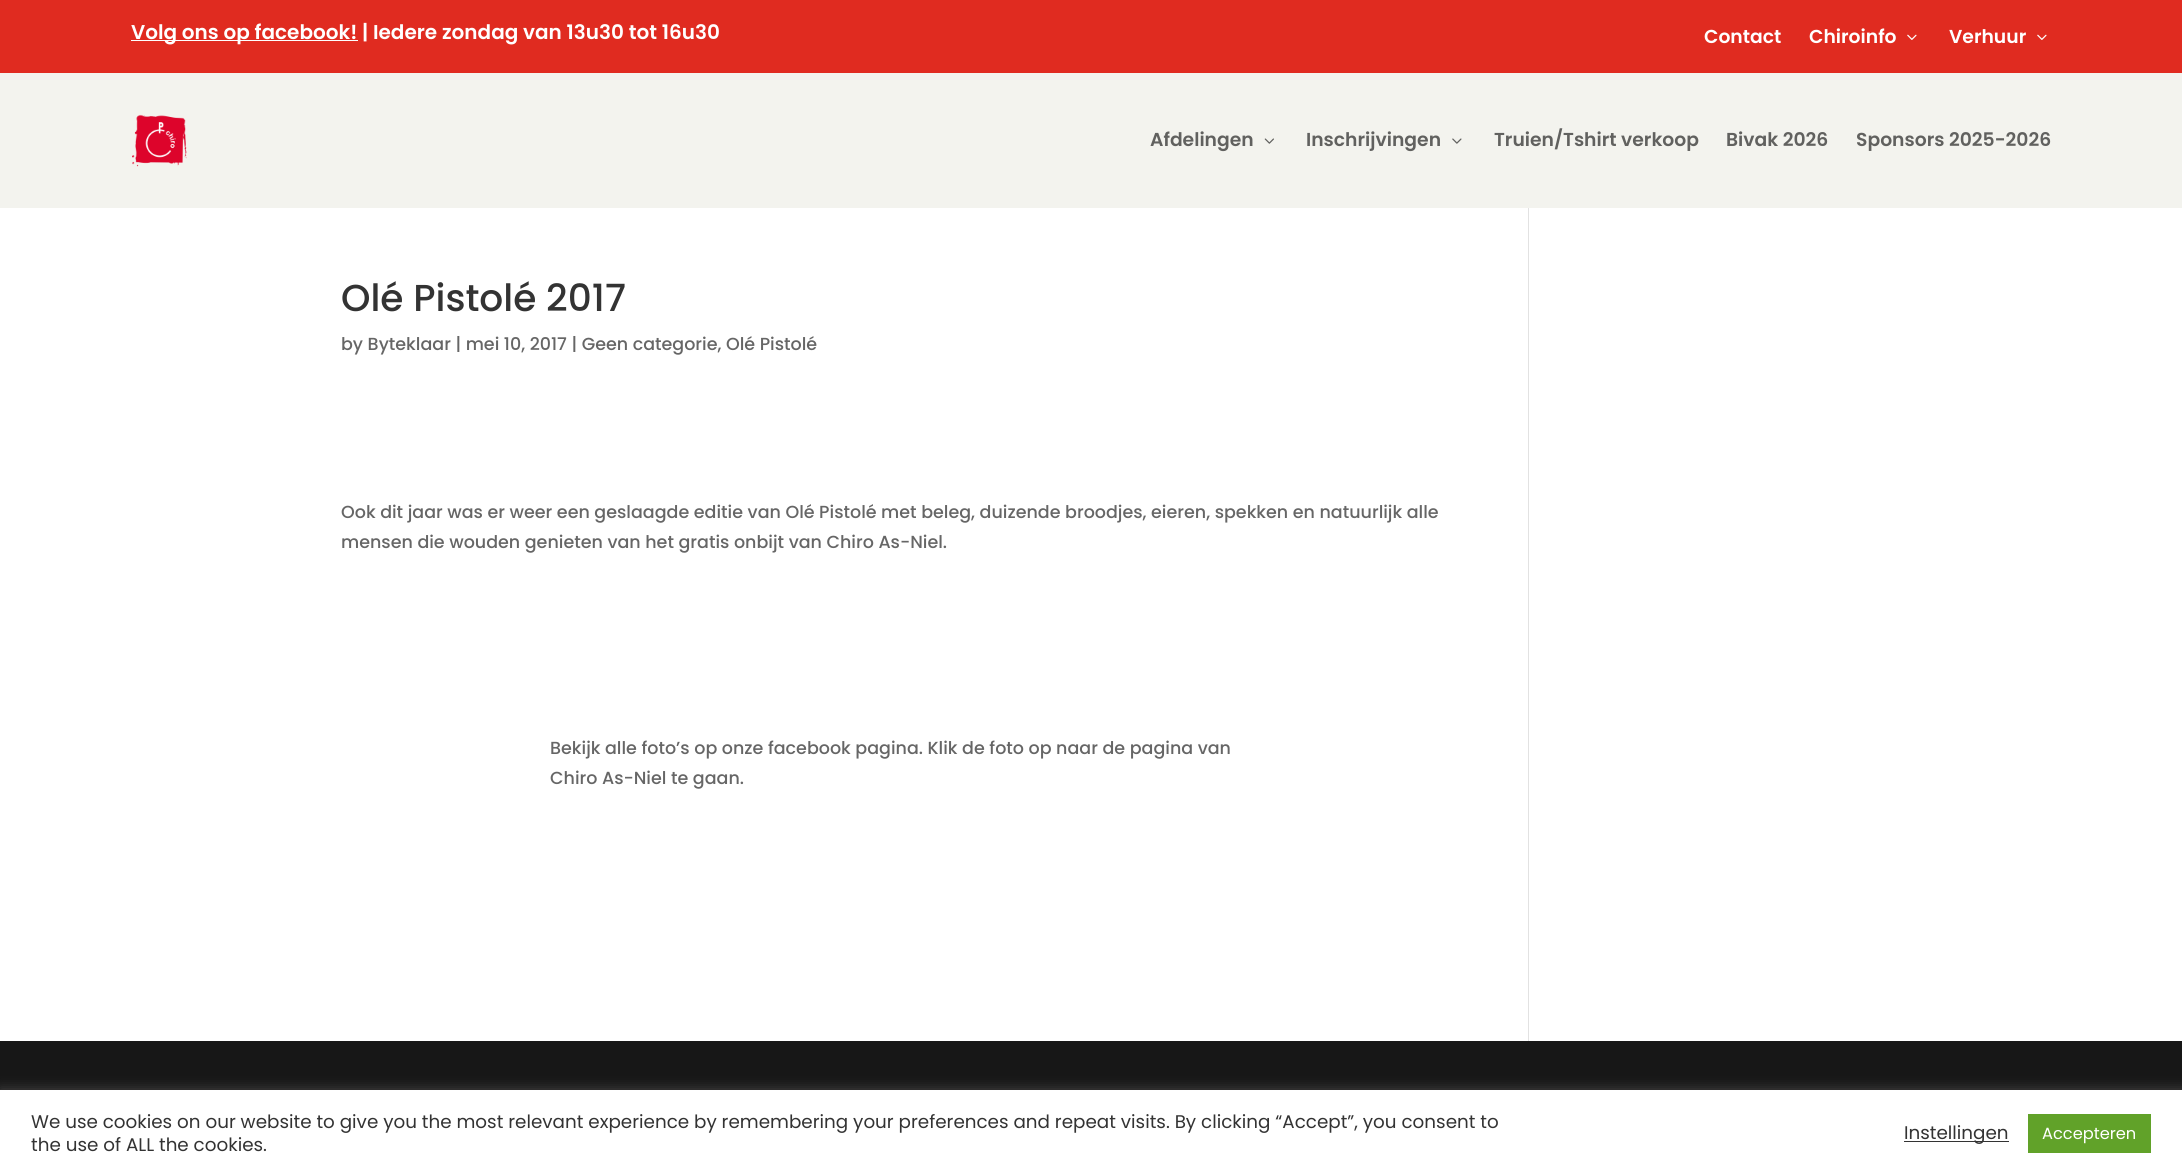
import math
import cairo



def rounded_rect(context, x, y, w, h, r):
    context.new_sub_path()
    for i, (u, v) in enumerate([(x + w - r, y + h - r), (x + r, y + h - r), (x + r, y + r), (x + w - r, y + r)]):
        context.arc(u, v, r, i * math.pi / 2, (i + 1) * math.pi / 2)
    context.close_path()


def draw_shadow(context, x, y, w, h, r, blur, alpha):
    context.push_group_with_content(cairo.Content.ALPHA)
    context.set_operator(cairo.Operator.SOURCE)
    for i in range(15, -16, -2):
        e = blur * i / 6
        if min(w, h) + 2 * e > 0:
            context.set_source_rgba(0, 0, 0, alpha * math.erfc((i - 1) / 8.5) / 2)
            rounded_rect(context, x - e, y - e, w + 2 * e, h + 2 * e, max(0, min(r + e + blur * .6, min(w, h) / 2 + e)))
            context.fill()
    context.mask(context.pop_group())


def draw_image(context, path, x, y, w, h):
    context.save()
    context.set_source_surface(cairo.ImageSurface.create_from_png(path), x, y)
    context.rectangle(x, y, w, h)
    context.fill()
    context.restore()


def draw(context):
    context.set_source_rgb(1, 1, 1)
    context.paint()
    context.set_source_rgb(224 / 255, 43 / 255, 32 / 255)
    context.rectangle(0, 0, 2182, 73)
    context.fill()
    context.set_source_rgb(1, 1, 1)
    context.rectangle(131, 40, 227, 1)
    context.fill()
    draw_image(context, "images/1.png", 1907, 34, 10, 6)
    draw_image(context, "images/1.png", 2037, 34, 10, 6)
    context.set_source_rgb(243 / 255, 243 / 255, 238 / 255)
    context.rectangle(0, 73, 2182, 135)
    context.fill()
    draw_image(context, "images/2.png", 132, 114, 55, 53)
    draw_image(context, "images/3.png", 1264, 138, 10, 6)
    draw_image(context, "images/4.png", 1452, 138, 10, 6)
    context.set_source_rgb(226 / 255, 226 / 255, 226 / 255)
    context.rectangle(1528, 208, 1, 833)
    context.fill()
    context.set_source_rgb(23 / 255, 23 / 255, 23 / 255)
    context.rectangle(0, 1041, 2182, 49)
    context.fill()
    context.set_source_rgb(172 / 255, 171 / 255, 171 / 255)
    draw_shadow(context, 0, 1089, 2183, 86, 0, 6, 0.3)
    context.set_source_rgb(1, 1, 1)
    context.rectangle(0, 1090, 2182, 86)
    context.fill()
    context.set_source_rgb(51 / 255, 51 / 255, 51 / 255)
    context.rectangle(1904, 1141, 105, 1)
    context.fill()
    context.set_source_rgb(97 / 255, 162 / 255, 41 / 255)
    context.rectangle(2028, 1114, 123, 39)
    context.fill()
    context.select_font_face("Poppins SemiBold")
    context.set_font_size(20)
    context.set_source_rgb(1, 1, 1)
    context.move_to(131, 39)
    context.show_text("Volg ons op facebook! | Iedere zondag van 13u30 tot 16u30")
    context.set_font_size(18.75)
    context.move_to(1704, 43)
    context.show_text("Contact")
    context.move_to(1809, 43)
    context.show_text("Chiroinfo")
    context.move_to(1949, 43)
    context.show_text("Verhuur")
    context.set_source_rgb(97 / 255, 97 / 255, 95 / 255)
    context.move_to(1150, 146)
    context.show_text("Afdelingen")
    context.move_to(1306, 146)
    context.show_text("Inschrijvingen")
    context.move_to(1494, 146)
    context.show_text("Truien/Tshirt verkoop")
    context.move_to(1726, 146)
    context.show_text("Bivak 2026")
    context.move_to(1856, 146)
    context.show_text("Sponsors 2025-2026")
    context.select_font_face("Poppins Medium")
    context.set_font_size(37.5)
    context.set_source_rgb(51 / 255, 51 / 255, 51 / 255)
    context.move_to(341, 311)
    context.show_text("Olé Pistolé 2017")
    context.set_font_size(17.5)
    context.set_source_rgb(102 / 255, 102 / 255, 102 / 255)
    context.move_to(341, 350)
    context.show_text("by Byteklaar | mei 10, 2017 | Geen categorie, Olé Pistolé")
    context.move_to(341, 518)
    context.show_text("Ook dit jaar was er weer een geslaagde editie van Olé Pistolé met beleg, duizende broodjes, eieren, spekken en natuurlijk alle")
    context.move_to(341, 548)
    context.show_text("mensen die wouden genieten van het gratis onbijt van Chiro As-Niel.")
    context.move_to(550, 754)
    context.show_text("Bekijk alle foto’s op onze facebook pagina. Klik de foto op naar de pagina van")
    context.move_to(550, 784)
    context.show_text("Chiro As-Niel te gaan.")
    context.select_font_face("Poppins")
    context.set_font_size(18.33)
    context.set_source_rgb(51 / 255, 51 / 255, 51 / 255)
    context.move_to(31, 1128)
    context.show_text("We use cookies on our website to give you the most relevant experience by remembering your preferences and repeat visits. By clicking “Accept”, you consent to")
    context.move_to(31, 1151)
    context.show_text("the use of ALL the cookies.")
    context.move_to(1904, 1139)
    context.show_text("Instellingen")
    context.set_font_size(16.25)
    context.set_source_rgb(1, 1, 1)
    context.move_to(2042, 1139)
    context.show_text("Accepteren")


surface = cairo.ImageSurface(cairo.Format.RGB24, 2182, 1176)
context = cairo.Context(surface)
options = cairo.FontOptions()
options.set_hint_metrics(cairo.HintMetrics.OFF)
options.set_hint_style(cairo.HintStyle.NONE)
context.set_font_options(options)
context.set_miter_limit(4)
draw(context)
surface.write_to_png("out.png")
